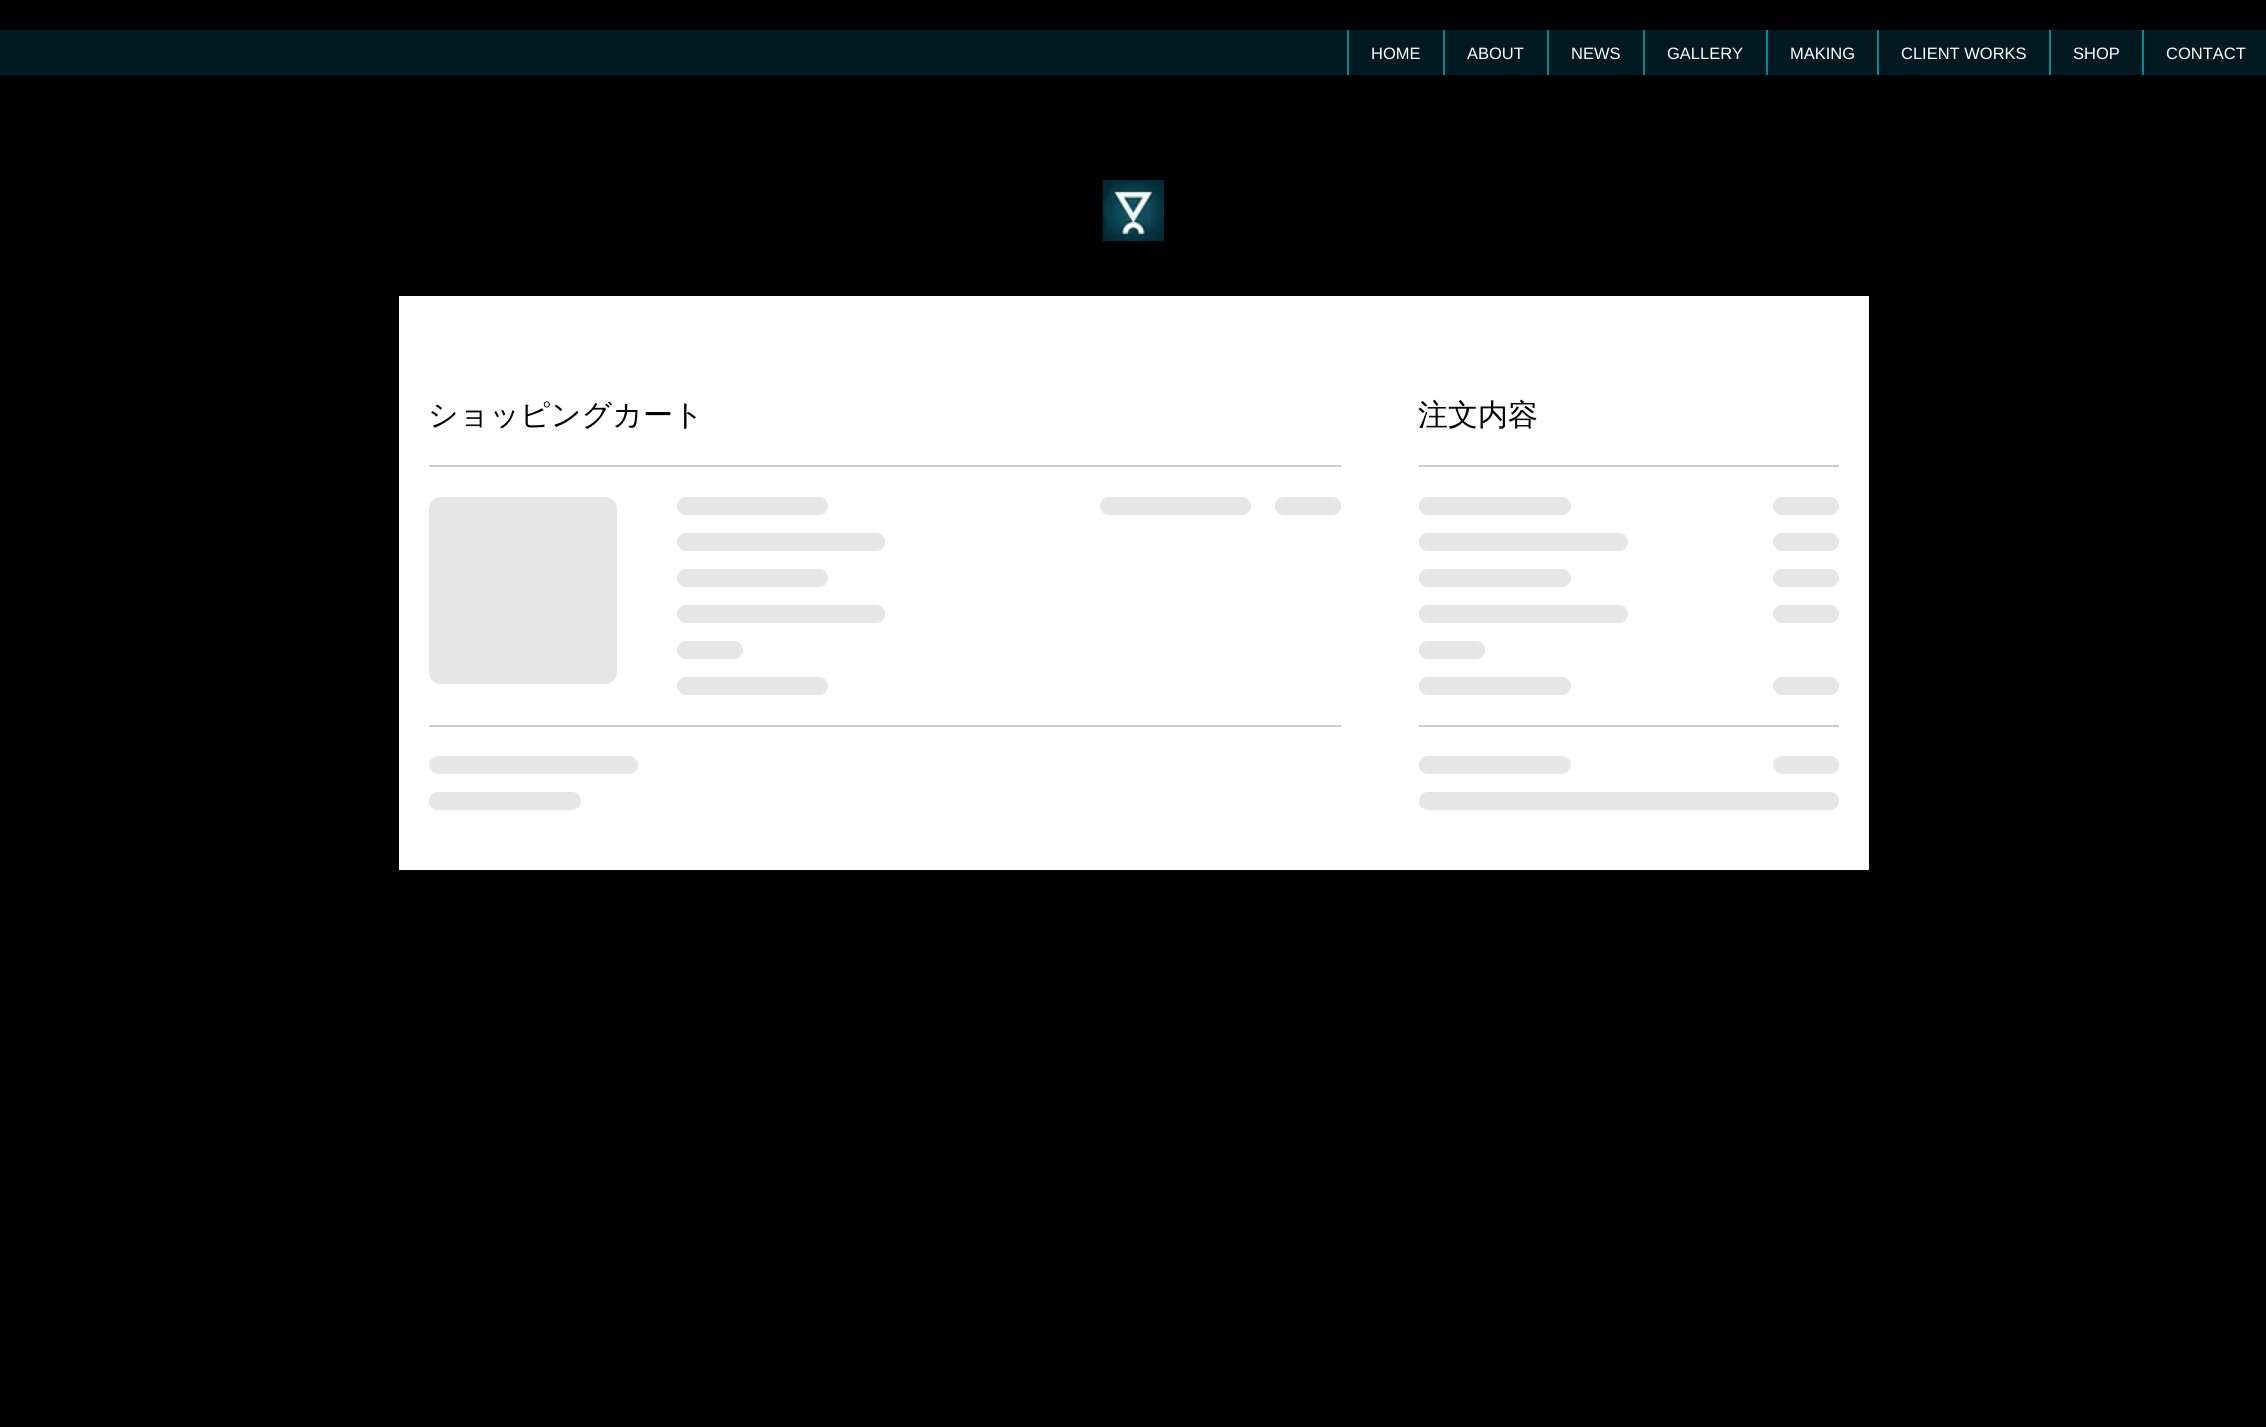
import math
import cairo



def rounded_rect(context, x, y, w, h, r):
    context.new_sub_path()
    for i, (u, v) in enumerate([(x + w - r, y + h - r), (x + r, y + h - r), (x + r, y + r), (x + w - r, y + r)]):
        context.arc(u, v, r, i * math.pi / 2, (i + 1) * math.pi / 2)
    context.close_path()


def draw_image(context, path, x, y, w, h):
    context.save()
    context.set_source_surface(cairo.ImageSurface.create_from_png(path), x, y)
    context.rectangle(x, y, w, h)
    context.fill()
    context.restore()


def draw(context):
    context.set_source_rgb(0, 0, 0)
    context.paint()
    context.set_source_rgb(3 / 255, 25 / 255, 33 / 255)
    context.rectangle(0, 30, 2266, 45)
    context.fill()
    context.set_source_rgb(1 / 255, 137 / 255, 143 / 255)
    context.rectangle(1347, 30, 2, 45)
    context.fill()
    context.rectangle(1443, 30, 2, 45)
    context.fill()
    context.rectangle(1547, 30, 2, 45)
    context.fill()
    context.rectangle(1643, 30, 2, 45)
    context.fill()
    context.rectangle(1766, 30, 2, 45)
    context.fill()
    context.rectangle(1877, 30, 2, 45)
    context.fill()
    context.rectangle(2049, 30, 2, 45)
    context.fill()
    context.rectangle(2142, 30, 2, 45)
    context.fill()
    draw_image(context, "images/1.png", 1102, 180, 62, 62)
    context.set_source_rgb(1, 1, 1)
    context.rectangle(399, 296, 1470, 574)
    context.fill()
    context.set_source_rgb(204 / 255, 204 / 255, 204 / 255)
    context.rectangle(429, 465, 912, 2)
    context.fill()
    gradient = cairo.LinearGradient(429, 590, 1179, 590)
    gradient.add_color_stop_rgba(0.25, 230 / 255, 230 / 255, 230 / 255, 1)
    gradient.add_color_stop_rgba(0.37, 204 / 255, 204 / 255, 204 / 255, 1)
    gradient.add_color_stop_rgba(0.63, 230 / 255, 230 / 255, 230 / 255, 1)
    context.set_source(gradient)
    rounded_rect(context, 429, 497, 188, 187, 12)
    context.fill()
    gradient = cairo.LinearGradient(677, 506, 1283, 506)
    gradient.add_color_stop_rgba(0.25, 230 / 255, 230 / 255, 230 / 255, 1)
    gradient.add_color_stop_rgba(0.37, 204 / 255, 204 / 255, 204 / 255, 1)
    gradient.add_color_stop_rgba(0.63, 230 / 255, 230 / 255, 230 / 255, 1)
    context.set_source(gradient)
    rounded_rect(context, 677, 497, 151, 18, 9)
    context.fill()
    gradient = cairo.LinearGradient(677, 542, 1511, 542)
    gradient.add_color_stop_rgba(0.25, 230 / 255, 230 / 255, 230 / 255, 1)
    gradient.add_color_stop_rgba(0.37, 204 / 255, 204 / 255, 204 / 255, 1)
    gradient.add_color_stop_rgba(0.63, 230 / 255, 230 / 255, 230 / 255, 1)
    context.set_source(gradient)
    rounded_rect(context, 677, 533, 208, 18, 9)
    context.fill()
    gradient = cairo.LinearGradient(677, 578, 1283, 578)
    gradient.add_color_stop_rgba(0.25, 230 / 255, 230 / 255, 230 / 255, 1)
    gradient.add_color_stop_rgba(0.37, 204 / 255, 204 / 255, 204 / 255, 1)
    gradient.add_color_stop_rgba(0.63, 230 / 255, 230 / 255, 230 / 255, 1)
    context.set_source(gradient)
    rounded_rect(context, 677, 569, 151, 18, 9)
    context.fill()
    gradient = cairo.LinearGradient(677, 614, 1511, 614)
    gradient.add_color_stop_rgba(0.25, 230 / 255, 230 / 255, 230 / 255, 1)
    gradient.add_color_stop_rgba(0.37, 204 / 255, 204 / 255, 204 / 255, 1)
    gradient.add_color_stop_rgba(0.63, 230 / 255, 230 / 255, 230 / 255, 1)
    context.set_source(gradient)
    rounded_rect(context, 677, 605, 208, 18, 9)
    context.fill()
    gradient = cairo.LinearGradient(677, 650, 941, 650)
    gradient.add_color_stop_rgba(0.25, 230 / 255, 230 / 255, 230 / 255, 1)
    gradient.add_color_stop_rgba(0.37, 204 / 255, 204 / 255, 204 / 255, 1)
    gradient.add_color_stop_rgba(0.63, 230 / 255, 230 / 255, 230 / 255, 1)
    context.set_source(gradient)
    rounded_rect(context, 677, 641, 66, 18, 9)
    context.fill()
    gradient = cairo.LinearGradient(677, 686, 1283, 686)
    gradient.add_color_stop_rgba(0.25, 230 / 255, 230 / 255, 230 / 255, 1)
    gradient.add_color_stop_rgba(0.37, 204 / 255, 204 / 255, 204 / 255, 1)
    gradient.add_color_stop_rgba(0.63, 230 / 255, 230 / 255, 230 / 255, 1)
    context.set_source(gradient)
    rounded_rect(context, 677, 677, 151, 18, 9)
    context.fill()
    gradient = cairo.LinearGradient(1100, 506, 1706, 506)
    gradient.add_color_stop_rgba(0.25, 230 / 255, 230 / 255, 230 / 255, 1)
    gradient.add_color_stop_rgba(0.37, 204 / 255, 204 / 255, 204 / 255, 1)
    gradient.add_color_stop_rgba(0.63, 230 / 255, 230 / 255, 230 / 255, 1)
    context.set_source(gradient)
    rounded_rect(context, 1100, 497, 151, 18, 9)
    context.fill()
    gradient = cairo.LinearGradient(1275, 506, 1539, 506)
    gradient.add_color_stop_rgba(0.25, 230 / 255, 230 / 255, 230 / 255, 1)
    gradient.add_color_stop_rgba(0.37, 204 / 255, 204 / 255, 204 / 255, 1)
    gradient.add_color_stop_rgba(0.63, 230 / 255, 230 / 255, 230 / 255, 1)
    context.set_source(gradient)
    rounded_rect(context, 1275, 497, 66, 18, 9)
    context.fill()
    context.set_source_rgb(204 / 255, 204 / 255, 204 / 255)
    context.rectangle(429, 725, 912, 2)
    context.fill()
    gradient = cairo.LinearGradient(429, 765, 1263, 765)
    gradient.add_color_stop_rgba(0.25, 230 / 255, 230 / 255, 230 / 255, 1)
    gradient.add_color_stop_rgba(0.37, 204 / 255, 204 / 255, 204 / 255, 1)
    gradient.add_color_stop_rgba(0.63, 230 / 255, 230 / 255, 230 / 255, 1)
    context.set_source(gradient)
    rounded_rect(context, 429, 756, 209, 18, 9)
    context.fill()
    gradient = cairo.LinearGradient(429, 801, 1035, 801)
    gradient.add_color_stop_rgba(0.25, 230 / 255, 230 / 255, 230 / 255, 1)
    gradient.add_color_stop_rgba(0.37, 204 / 255, 204 / 255, 204 / 255, 1)
    gradient.add_color_stop_rgba(0.63, 230 / 255, 230 / 255, 230 / 255, 1)
    context.set_source(gradient)
    rounded_rect(context, 429, 792, 152, 18, 9)
    context.fill()
    context.set_source_rgb(204 / 255, 204 / 255, 204 / 255)
    context.rectangle(1419, 465, 420, 2)
    context.fill()
    gradient = cairo.LinearGradient(1419, 506, 2025, 506)
    gradient.add_color_stop_rgba(0.25, 230 / 255, 230 / 255, 230 / 255, 1)
    gradient.add_color_stop_rgba(0.37, 204 / 255, 204 / 255, 204 / 255, 1)
    gradient.add_color_stop_rgba(0.63, 230 / 255, 230 / 255, 230 / 255, 1)
    context.set_source(gradient)
    rounded_rect(context, 1419, 497, 152, 18, 9)
    context.fill()
    gradient = cairo.LinearGradient(1773, 506, 2037, 506)
    gradient.add_color_stop_rgba(0.25, 230 / 255, 230 / 255, 230 / 255, 1)
    gradient.add_color_stop_rgba(0.37, 204 / 255, 204 / 255, 204 / 255, 1)
    gradient.add_color_stop_rgba(0.63, 230 / 255, 230 / 255, 230 / 255, 1)
    context.set_source(gradient)
    rounded_rect(context, 1773, 497, 66, 18, 9)
    context.fill()
    gradient = cairo.LinearGradient(1419, 542, 2253, 542)
    gradient.add_color_stop_rgba(0.25, 230 / 255, 230 / 255, 230 / 255, 1)
    gradient.add_color_stop_rgba(0.37, 204 / 255, 204 / 255, 204 / 255, 1)
    gradient.add_color_stop_rgba(0.63, 230 / 255, 230 / 255, 230 / 255, 1)
    context.set_source(gradient)
    rounded_rect(context, 1419, 533, 209, 18, 9)
    context.fill()
    gradient = cairo.LinearGradient(1773, 542, 2037, 542)
    gradient.add_color_stop_rgba(0.25, 230 / 255, 230 / 255, 230 / 255, 1)
    gradient.add_color_stop_rgba(0.37, 204 / 255, 204 / 255, 204 / 255, 1)
    gradient.add_color_stop_rgba(0.63, 230 / 255, 230 / 255, 230 / 255, 1)
    context.set_source(gradient)
    rounded_rect(context, 1773, 533, 66, 18, 9)
    context.fill()
    gradient = cairo.LinearGradient(1419, 578, 2025, 578)
    gradient.add_color_stop_rgba(0.25, 230 / 255, 230 / 255, 230 / 255, 1)
    gradient.add_color_stop_rgba(0.37, 204 / 255, 204 / 255, 204 / 255, 1)
    gradient.add_color_stop_rgba(0.63, 230 / 255, 230 / 255, 230 / 255, 1)
    context.set_source(gradient)
    rounded_rect(context, 1419, 569, 152, 18, 9)
    context.fill()
    gradient = cairo.LinearGradient(1773, 578, 2037, 578)
    gradient.add_color_stop_rgba(0.25, 230 / 255, 230 / 255, 230 / 255, 1)
    gradient.add_color_stop_rgba(0.37, 204 / 255, 204 / 255, 204 / 255, 1)
    gradient.add_color_stop_rgba(0.63, 230 / 255, 230 / 255, 230 / 255, 1)
    context.set_source(gradient)
    rounded_rect(context, 1773, 569, 66, 18, 9)
    context.fill()
    gradient = cairo.LinearGradient(1419, 614, 2253, 614)
    gradient.add_color_stop_rgba(0.25, 230 / 255, 230 / 255, 230 / 255, 1)
    gradient.add_color_stop_rgba(0.37, 204 / 255, 204 / 255, 204 / 255, 1)
    gradient.add_color_stop_rgba(0.63, 230 / 255, 230 / 255, 230 / 255, 1)
    context.set_source(gradient)
    rounded_rect(context, 1419, 605, 209, 18, 9)
    context.fill()
    gradient = cairo.LinearGradient(1773, 614, 2037, 614)
    gradient.add_color_stop_rgba(0.25, 230 / 255, 230 / 255, 230 / 255, 1)
    gradient.add_color_stop_rgba(0.37, 204 / 255, 204 / 255, 204 / 255, 1)
    gradient.add_color_stop_rgba(0.63, 230 / 255, 230 / 255, 230 / 255, 1)
    context.set_source(gradient)
    rounded_rect(context, 1773, 605, 66, 18, 9)
    context.fill()
    gradient = cairo.LinearGradient(1419, 650, 1683, 650)
    gradient.add_color_stop_rgba(0.25, 230 / 255, 230 / 255, 230 / 255, 1)
    gradient.add_color_stop_rgba(0.37, 204 / 255, 204 / 255, 204 / 255, 1)
    gradient.add_color_stop_rgba(0.63, 230 / 255, 230 / 255, 230 / 255, 1)
    context.set_source(gradient)
    rounded_rect(context, 1419, 641, 66, 18, 9)
    context.fill()
    gradient = cairo.LinearGradient(1419, 686, 2025, 686)
    gradient.add_color_stop_rgba(0.25, 230 / 255, 230 / 255, 230 / 255, 1)
    gradient.add_color_stop_rgba(0.37, 204 / 255, 204 / 255, 204 / 255, 1)
    gradient.add_color_stop_rgba(0.63, 230 / 255, 230 / 255, 230 / 255, 1)
    context.set_source(gradient)
    rounded_rect(context, 1419, 677, 152, 18, 9)
    context.fill()
    gradient = cairo.LinearGradient(1773, 686, 2037, 686)
    gradient.add_color_stop_rgba(0.25, 230 / 255, 230 / 255, 230 / 255, 1)
    gradient.add_color_stop_rgba(0.37, 204 / 255, 204 / 255, 204 / 255, 1)
    gradient.add_color_stop_rgba(0.63, 230 / 255, 230 / 255, 230 / 255, 1)
    context.set_source(gradient)
    rounded_rect(context, 1773, 677, 66, 18, 9)
    context.fill()
    context.set_source_rgb(204 / 255, 204 / 255, 204 / 255)
    context.rectangle(1419, 725, 420, 2)
    context.fill()
    gradient = cairo.LinearGradient(1419, 765, 2025, 765)
    gradient.add_color_stop_rgba(0.25, 230 / 255, 230 / 255, 230 / 255, 1)
    gradient.add_color_stop_rgba(0.37, 204 / 255, 204 / 255, 204 / 255, 1)
    gradient.add_color_stop_rgba(0.63, 230 / 255, 230 / 255, 230 / 255, 1)
    context.set_source(gradient)
    rounded_rect(context, 1419, 756, 152, 18, 9)
    context.fill()
    gradient = cairo.LinearGradient(1773, 765, 2037, 765)
    gradient.add_color_stop_rgba(0.25, 230 / 255, 230 / 255, 230 / 255, 1)
    gradient.add_color_stop_rgba(0.37, 204 / 255, 204 / 255, 204 / 255, 1)
    gradient.add_color_stop_rgba(0.63, 230 / 255, 230 / 255, 230 / 255, 1)
    context.set_source(gradient)
    rounded_rect(context, 1773, 756, 66, 18, 9)
    context.fill()
    gradient = cairo.LinearGradient(1419, 801, 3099, 801)
    gradient.add_color_stop_rgba(0.25, 230 / 255, 230 / 255, 230 / 255, 1)
    gradient.add_color_stop_rgba(0.37, 204 / 255, 204 / 255, 204 / 255, 1)
    gradient.add_color_stop_rgba(0.63, 230 / 255, 230 / 255, 230 / 255, 1)
    context.set_source(gradient)
    rounded_rect(context, 1419, 792, 420, 18, 9)
    context.fill()
    context.select_font_face("Liberation Sans")
    context.set_font_size(16.5)
    context.set_source_rgb(1, 1, 1)
    context.move_to(1371, 59)
    context.show_text("HOME")
    context.move_to(1467, 59)
    context.show_text("ABOUT")
    context.move_to(1571, 59)
    context.show_text("NEWS")
    context.move_to(1667, 59)
    context.show_text("GALLERY")
    context.move_to(1790, 59)
    context.show_text("MAKING")
    context.move_to(1901, 59)
    context.show_text("CLIENT WORKS")
    context.move_to(2073, 59)
    context.show_text("SHOP")
    context.move_to(2166, 59)
    context.show_text("CONTACT")
    context.select_font_face("WenQuanYi Zen Hei Medium")
    context.set_font_size(30)
    context.set_source_rgb(0, 0, 0)
    context.move_to(428, 425)
    context.show_text("ショッピングカート")
    context.move_to(1418, 425)
    context.show_text("注文内容")


surface = cairo.ImageSurface(cairo.Format.RGB24, 2266, 1427)
context = cairo.Context(surface)
options = cairo.FontOptions()
options.set_hint_metrics(cairo.HintMetrics.OFF)
options.set_hint_style(cairo.HintStyle.NONE)
context.set_font_options(options)
context.set_miter_limit(4)
draw(context)
surface.write_to_png("out.png")
